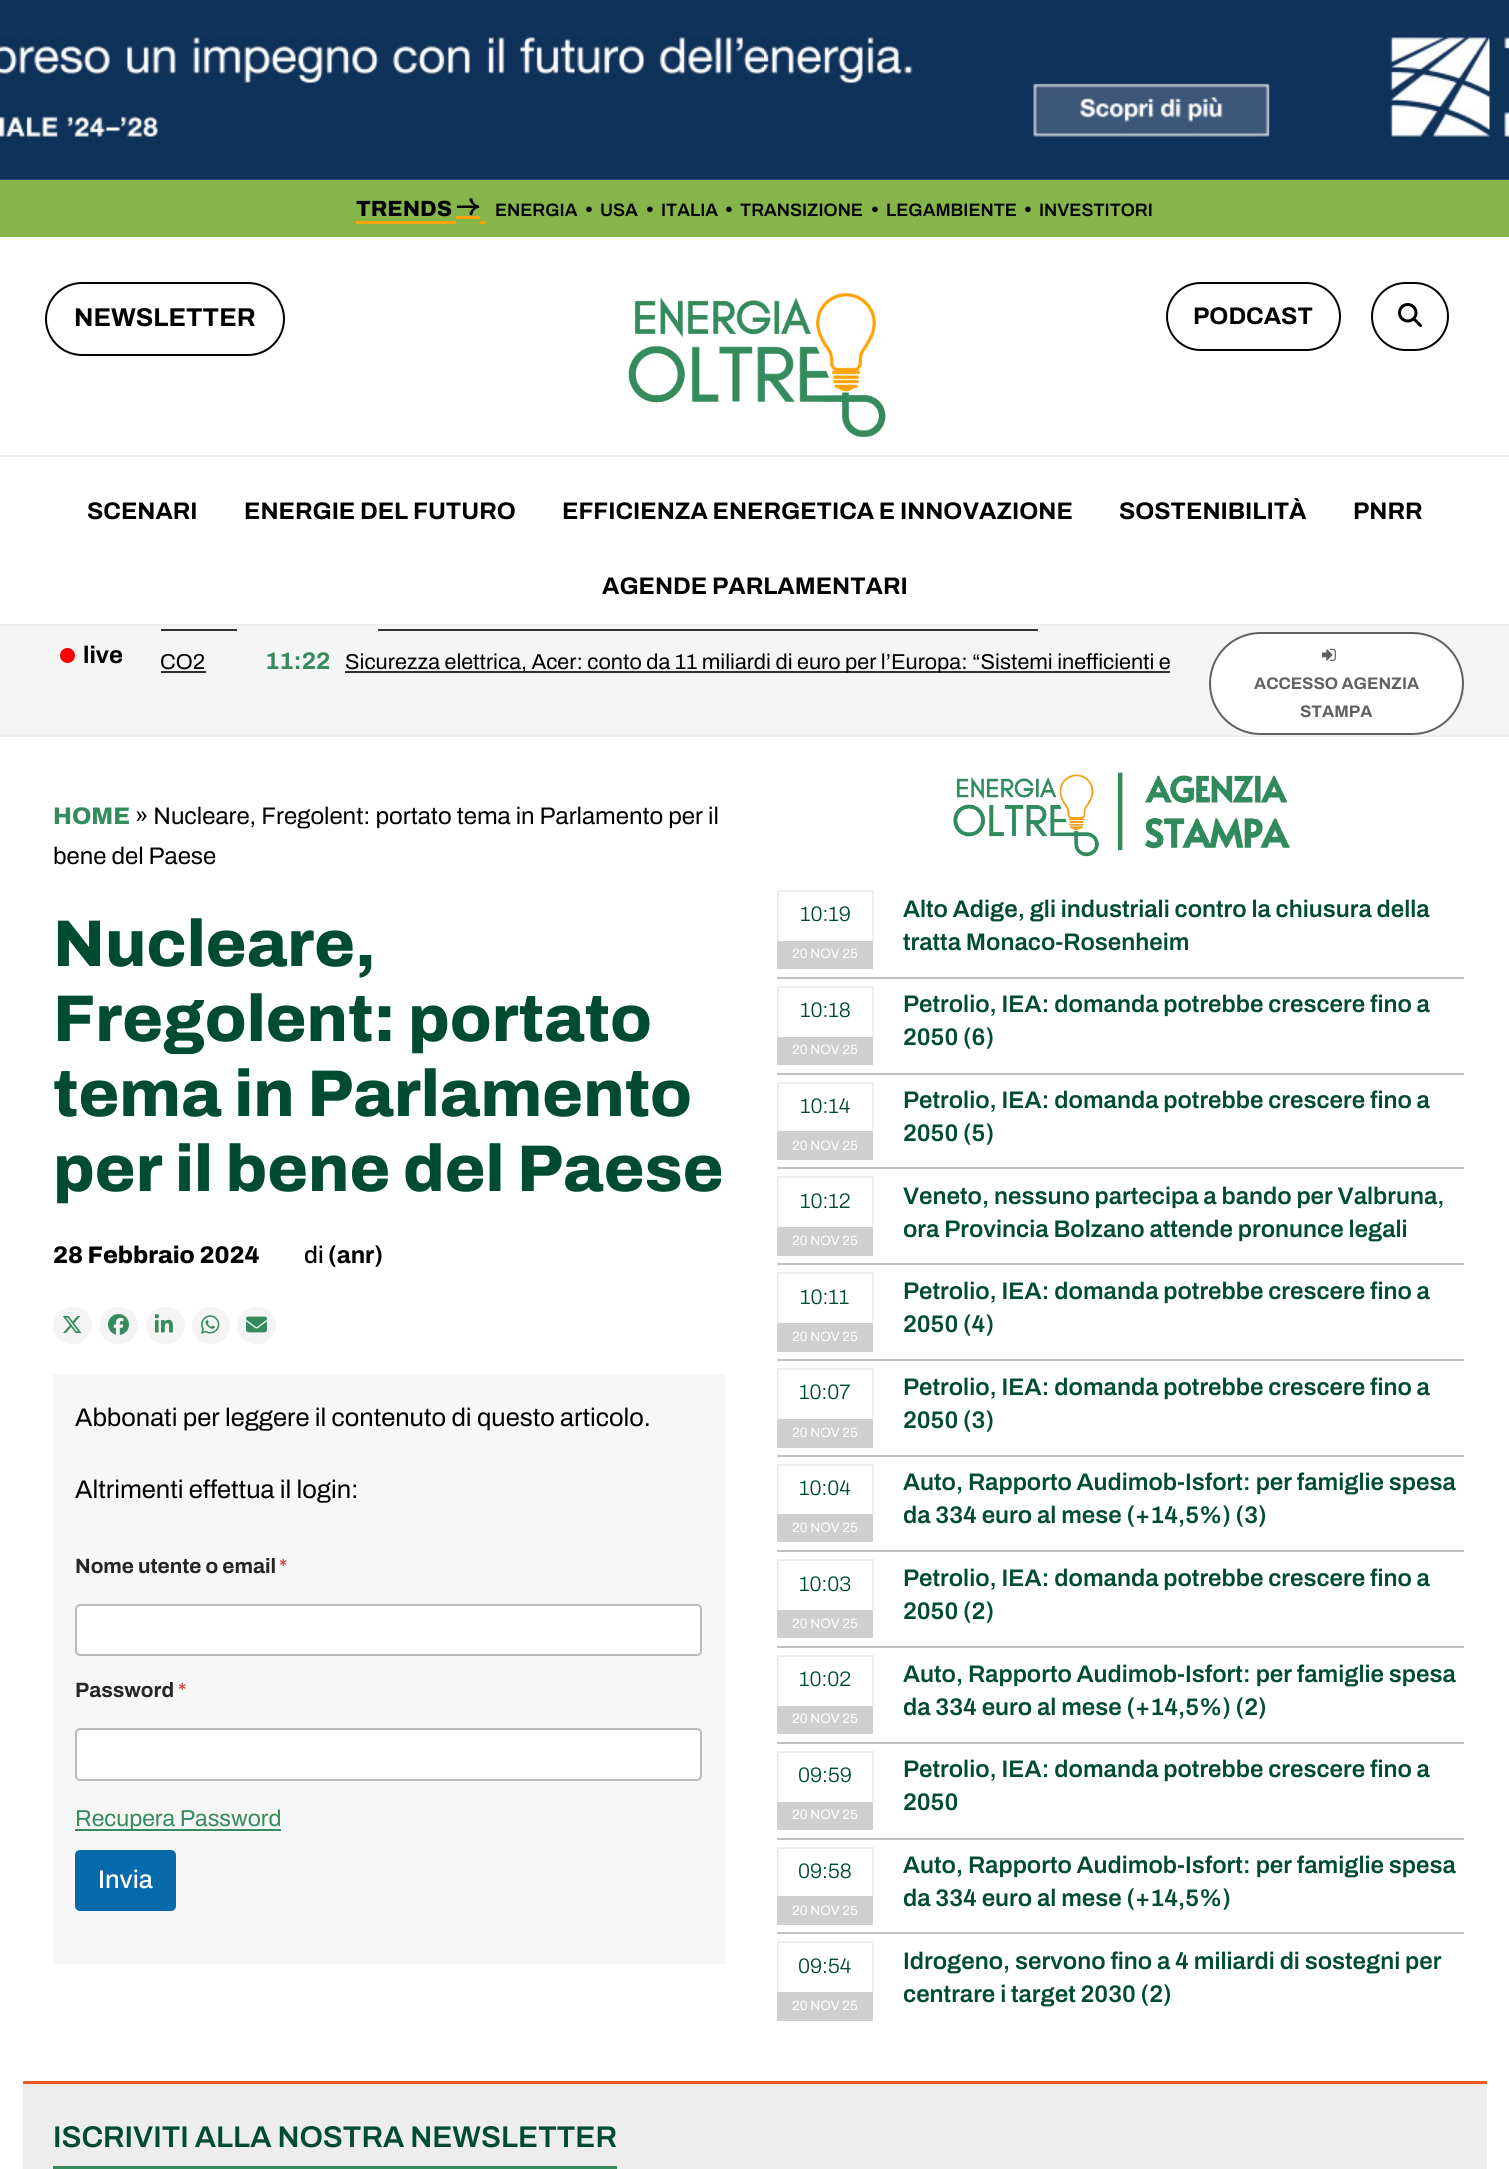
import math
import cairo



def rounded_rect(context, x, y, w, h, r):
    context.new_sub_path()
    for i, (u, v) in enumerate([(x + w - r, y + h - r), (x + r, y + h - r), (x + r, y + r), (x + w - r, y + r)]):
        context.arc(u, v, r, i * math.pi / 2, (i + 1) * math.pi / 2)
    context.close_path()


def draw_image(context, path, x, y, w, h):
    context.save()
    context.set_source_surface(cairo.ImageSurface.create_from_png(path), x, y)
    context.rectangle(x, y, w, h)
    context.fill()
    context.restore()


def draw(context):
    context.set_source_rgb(17 / 255, 50 / 255, 91 / 255)
    context.paint()
    draw_image(context, "images/1.png", 0, 36, 1509, 144)
    context.set_source_rgb(1, 1, 1)
    context.rectangle(0, 237, 1509, 1932)
    context.fill()
    context.set_source_rgb(133 / 255, 181 / 255, 75 / 255)
    context.rectangle(0, 180, 1509, 57)
    context.fill()
    context.set_source_rgb(1, 163 / 255, 5 / 255)
    context.rectangle(356, 221, 100, 3)
    context.fill()
    context.rectangle(456, 216, 24, 3)
    context.fill()
    context.rectangle(480, 221, 5, 3)
    context.fill()
    draw_image(context, "images/2.png", 456, 198, 24, 18)
    rounded_rect(context, 46, 283, 238, 72, 36)
    context.set_source_rgb(0, 0, 0)
    context.stroke()
    draw_image(context, "images/3.png", 628, 292, 258, 146)
    rounded_rect(context, 1167, 283, 173, 67, 33.5)
    context.stroke()
    rounded_rect(context, 1372, 283, 76, 67, 33.5)
    context.stroke()
    draw_image(context, "images/4.png", 1398, 303, 24, 24)
    context.set_source_rgb(238 / 255, 238 / 255, 238 / 255)
    context.rectangle(0, 455, 1509, 2)
    context.fill()
    context.rectangle(0, 624, 1509, 2)
    context.fill()
    context.set_source_rgb(245 / 255, 245 / 255, 245 / 255)
    context.rectangle(0, 626, 1509, 109)
    context.fill()
    context.set_source_rgb(1, 0, 0)
    context.arc(67.5, 655.5, 7.5, 0, 2 * math.pi)
    context.fill()
    context.set_source_rgb(49 / 255, 49 / 255, 49 / 255)
    context.rectangle(161, 629, 76, 2)
    context.fill()
    context.rectangle(378, 629, 660, 2)
    context.fill()
    context.rectangle(161, 671, 45, 2)
    context.fill()
    context.rectangle(345, 671, 825, 2)
    context.fill()
    context.set_source_rgb(1, 1, 1)
    rounded_rect(context, 1210, 633, 253, 101, 50.5)
    context.fill_preserve()
    context.set_source_rgb(97 / 255, 97 / 255, 97 / 255)
    context.stroke()
    draw_image(context, "images/5.png", 1322, 648, 14, 13)
    context.set_source_rgb(238 / 255, 238 / 255, 238 / 255)
    context.rectangle(0, 735, 1509, 2)
    context.fill()
    context.set_source_rgb(244 / 255, 244 / 255, 244 / 255)
    rounded_rect(context, 53, 1307, 39, 37, 18.5)
    context.fill()
    draw_image(context, "images/6.png", 62, 1316, 20, 17)
    rounded_rect(context, 99, 1307, 39, 37, 18.5)
    context.fill()
    draw_image(context, "images/7.png", 108, 1314, 21, 21)
    rounded_rect(context, 146, 1307, 39, 37, 18.5)
    context.fill()
    draw_image(context, "images/8.png", 155, 1314, 18, 19)
    rounded_rect(context, 192, 1307, 38, 37, 18.5)
    context.fill()
    draw_image(context, "images/9.png", 201, 1315, 19, 19)
    rounded_rect(context, 237, 1307, 39, 37, 18.5)
    context.fill()
    draw_image(context, "images/10.png", 246, 1316, 21, 17)
    context.set_source_rgb(247 / 255, 247 / 255, 247 / 255)
    context.rectangle(53, 1374, 672, 590)
    context.fill()
    context.set_source_rgb(1, 1, 1)
    rounded_rect(context, 77, 1605, 624, 50, 3)
    context.fill()
    rounded_rect(context, 76, 1605, 625, 50, 4)
    context.set_source_rgba(0, 0, 0, 0.25)
    context.stroke()
    context.set_source_rgb(1, 1, 1)
    rounded_rect(context, 77, 1730, 624, 49, 3)
    context.fill()
    rounded_rect(context, 76, 1729, 625, 51, 4)
    context.set_source_rgba(0, 0, 0, 0.25)
    context.stroke()
    context.set_source_rgb(52 / 255, 139 / 255, 92 / 255)
    context.rectangle(75, 1829, 206, 2)
    context.fill()
    context.set_source_rgb(6 / 255, 106 / 255, 171 / 255)
    rounded_rect(context, 75, 1850, 101, 61, 5)
    context.fill()
    draw_image(context, "images/11.png", 953, 772, 337, 85)
    context.set_source_rgb(238 / 255, 238 / 255, 238 / 255)
    context.rectangle(777, 890, 96, 2)
    context.fill()
    context.rectangle(872, 890, 2, 51)
    context.fill()
    context.rectangle(777, 890, 2, 51)
    context.fill()
    context.set_source_rgb(207 / 255, 207 / 255, 207 / 255)
    context.rectangle(777, 941, 96, 28)
    context.fill()
    context.set_source_rgb(193 / 255, 193 / 255, 193 / 255)
    context.rectangle(777, 977, 687, 2)
    context.fill()
    context.set_source_rgb(238 / 255, 238 / 255, 238 / 255)
    context.rectangle(777, 986, 96, 2)
    context.fill()
    context.rectangle(872, 986, 2, 51)
    context.fill()
    context.rectangle(777, 986, 2, 51)
    context.fill()
    context.set_source_rgb(207 / 255, 207 / 255, 207 / 255)
    context.rectangle(777, 1037, 96, 28)
    context.fill()
    context.set_source_rgb(193 / 255, 193 / 255, 193 / 255)
    context.rectangle(777, 1073, 687, 2)
    context.fill()
    context.set_source_rgb(238 / 255, 238 / 255, 238 / 255)
    context.rectangle(777, 1082, 96, 2)
    context.fill()
    context.rectangle(872, 1082, 2, 49)
    context.fill()
    context.rectangle(777, 1082, 2, 49)
    context.fill()
    context.set_source_rgb(207 / 255, 207 / 255, 207 / 255)
    context.rectangle(777, 1131, 96, 29)
    context.fill()
    context.set_source_rgb(193 / 255, 193 / 255, 193 / 255)
    context.rectangle(777, 1167, 687, 2)
    context.fill()
    context.set_source_rgb(238 / 255, 238 / 255, 238 / 255)
    context.rectangle(777, 1176, 96, 2)
    context.fill()
    context.rectangle(872, 1176, 2, 51)
    context.fill()
    context.rectangle(777, 1176, 2, 51)
    context.fill()
    context.set_source_rgb(207 / 255, 207 / 255, 207 / 255)
    context.rectangle(777, 1227, 96, 29)
    context.fill()
    context.set_source_rgb(193 / 255, 193 / 255, 193 / 255)
    context.rectangle(777, 1263, 687, 2)
    context.fill()
    context.set_source_rgb(238 / 255, 238 / 255, 238 / 255)
    context.rectangle(777, 1272, 96, 2)
    context.fill()
    context.rectangle(872, 1272, 2, 51)
    context.fill()
    context.rectangle(777, 1272, 2, 51)
    context.fill()
    context.set_source_rgb(207 / 255, 207 / 255, 207 / 255)
    context.rectangle(777, 1323, 96, 29)
    context.fill()
    context.set_source_rgb(193 / 255, 193 / 255, 193 / 255)
    context.rectangle(777, 1359, 687, 2)
    context.fill()
    context.set_source_rgb(238 / 255, 238 / 255, 238 / 255)
    context.rectangle(777, 1368, 96, 2)
    context.fill()
    context.rectangle(872, 1368, 2, 51)
    context.fill()
    context.rectangle(777, 1368, 2, 51)
    context.fill()
    context.set_source_rgb(207 / 255, 207 / 255, 207 / 255)
    context.rectangle(777, 1419, 96, 29)
    context.fill()
    context.set_source_rgb(193 / 255, 193 / 255, 193 / 255)
    context.rectangle(777, 1455, 687, 2)
    context.fill()
    context.set_source_rgb(238 / 255, 238 / 255, 238 / 255)
    context.rectangle(777, 1464, 96, 2)
    context.fill()
    context.rectangle(872, 1464, 2, 50)
    context.fill()
    context.rectangle(777, 1464, 2, 50)
    context.fill()
    context.set_source_rgb(207 / 255, 207 / 255, 207 / 255)
    context.rectangle(777, 1514, 96, 28)
    context.fill()
    context.set_source_rgb(193 / 255, 193 / 255, 193 / 255)
    context.rectangle(777, 1550, 687, 2)
    context.fill()
    context.set_source_rgb(238 / 255, 238 / 255, 238 / 255)
    context.rectangle(777, 1559, 96, 2)
    context.fill()
    context.rectangle(872, 1559, 2, 51)
    context.fill()
    context.rectangle(777, 1559, 2, 51)
    context.fill()
    context.set_source_rgb(207 / 255, 207 / 255, 207 / 255)
    context.rectangle(777, 1610, 96, 28)
    context.fill()
    context.set_source_rgb(193 / 255, 193 / 255, 193 / 255)
    context.rectangle(777, 1646, 687, 2)
    context.fill()
    context.set_source_rgb(238 / 255, 238 / 255, 238 / 255)
    context.rectangle(777, 1655, 96, 2)
    context.fill()
    context.rectangle(872, 1655, 2, 51)
    context.fill()
    context.rectangle(777, 1655, 2, 51)
    context.fill()
    context.set_source_rgb(207 / 255, 207 / 255, 207 / 255)
    context.rectangle(777, 1706, 96, 28)
    context.fill()
    context.set_source_rgb(193 / 255, 193 / 255, 193 / 255)
    context.rectangle(777, 1742, 687, 2)
    context.fill()
    context.set_source_rgb(238 / 255, 238 / 255, 238 / 255)
    context.rectangle(777, 1751, 96, 2)
    context.fill()
    context.rectangle(872, 1751, 2, 51)
    context.fill()
    context.rectangle(777, 1751, 2, 51)
    context.fill()
    context.set_source_rgb(207 / 255, 207 / 255, 207 / 255)
    context.rectangle(777, 1802, 96, 28)
    context.fill()
    context.set_source_rgb(193 / 255, 193 / 255, 193 / 255)
    context.rectangle(777, 1838, 687, 2)
    context.fill()
    context.set_source_rgb(238 / 255, 238 / 255, 238 / 255)
    context.rectangle(777, 1847, 96, 2)
    context.fill()
    context.rectangle(872, 1847, 2, 49)
    context.fill()
    context.rectangle(777, 1847, 2, 49)
    context.fill()
    context.set_source_rgb(207 / 255, 207 / 255, 207 / 255)
    context.rectangle(777, 1896, 96, 29)
    context.fill()
    context.set_source_rgb(193 / 255, 193 / 255, 193 / 255)
    context.rectangle(777, 1932, 687, 2)
    context.fill()
    context.set_source_rgb(238 / 255, 238 / 255, 238 / 255)
    context.rectangle(777, 1941, 96, 2)
    context.fill()
    context.rectangle(872, 1941, 2, 51)
    context.fill()
    context.rectangle(777, 1941, 2, 51)
    context.fill()
    context.set_source_rgb(207 / 255, 207 / 255, 207 / 255)
    context.rectangle(777, 1992, 96, 29)
    context.fill()
    context.set_source_rgb(237 / 255, 237 / 255, 237 / 255)
    context.rectangle(23, 2084, 1464, 85)
    context.fill()
    context.set_source_rgb(240 / 255, 90 / 255, 40 / 255)
    context.rectangle(23, 2081, 1464, 3)
    context.fill()
    context.set_source_rgb(52 / 255, 139 / 255, 92 / 255)
    context.rectangle(53, 2166, 564, 3)
    context.fill()
    context.select_font_face("Archivo ExtraBold")
    context.set_font_size(22)
    context.set_source_rgb(0, 0, 0)
    context.move_to(356, 216)
    context.show_text("TRENDS")
    context.select_font_face("Archivo SemiBold")
    context.set_font_size(18)
    context.move_to(495, 216)
    context.show_text("ENERGIA")
    context.select_font_face("Liberation Serif", cairo.FontSlant.NORMAL, cairo.FontWeight.BOLD)
    context.set_font_size(13)
    context.move_to(585, 213)
    context.show_text("●")
    context.select_font_face("Archivo SemiBold")
    context.set_font_size(18)
    context.move_to(600, 216)
    context.show_text("USA")
    context.select_font_face("Liberation Serif", cairo.FontSlant.NORMAL, cairo.FontWeight.BOLD)
    context.set_font_size(13)
    context.move_to(646, 213)
    context.show_text("●")
    context.select_font_face("Archivo SemiBold")
    context.set_font_size(18)
    context.move_to(661, 216)
    context.show_text("ITALIA")
    context.select_font_face("Liberation Serif", cairo.FontSlant.NORMAL, cairo.FontWeight.BOLD)
    context.set_font_size(13)
    context.move_to(725, 213)
    context.show_text("●")
    context.select_font_face("Archivo SemiBold")
    context.set_font_size(18)
    context.move_to(740, 216)
    context.show_text("TRANSIZIONE")
    context.select_font_face("Liberation Serif", cairo.FontSlant.NORMAL, cairo.FontWeight.BOLD)
    context.set_font_size(13)
    context.move_to(871, 213)
    context.show_text("●")
    context.select_font_face("Archivo SemiBold")
    context.set_font_size(18)
    context.move_to(886, 216)
    context.show_text("LEGAMBIENTE")
    context.select_font_face("Liberation Serif", cairo.FontSlant.NORMAL, cairo.FontWeight.BOLD)
    context.set_font_size(13)
    context.move_to(1024, 213)
    context.show_text("●")
    context.select_font_face("Archivo SemiBold")
    context.set_font_size(18)
    context.move_to(1039, 216)
    context.show_text("INVESTITORI")
    context.select_font_face("Archivo", cairo.FontSlant.NORMAL, cairo.FontWeight.BOLD)
    context.set_font_size(25.75)
    context.move_to(74, 326)
    context.show_text("NEWSLETTER")
    context.set_font_size(24)
    context.move_to(1193, 324)
    context.show_text("PODCAST")
    context.move_to(87, 519)
    context.show_text("SCENARI")
    context.move_to(244, 519)
    context.show_text("ENERGIE DEL FUTURO")
    context.move_to(562, 519)
    context.show_text("EFFICIENZA ENERGETICA E INNOVAZIONE")
    context.move_to(1119, 519)
    context.show_text("SOSTENIBILITÀ")
    context.move_to(1353, 519)
    context.show_text("PNRR")
    context.move_to(602, 594)
    context.show_text("AGENDE PARLAMENTARI")
    context.move_to(83, 663)
    context.show_text("live")
    context.select_font_face("Archivo")
    context.set_font_size(21.6)
    context.move_to(160, 669)
    context.show_text("CO2")
    context.select_font_face("Archivo", cairo.FontSlant.NORMAL, cairo.FontWeight.BOLD)
    context.set_font_size(24)
    context.set_source_rgb(52 / 255, 139 / 255, 92 / 255)
    context.move_to(265, 669)
    context.show_text("11:22")
    context.select_font_face("Archivo")
    context.set_font_size(21.6)
    context.set_source_rgb(0, 0, 0)
    context.move_to(345, 669)
    context.show_text("Sicurezza elettrica, Acer: conto da 11 miliardi di euro per l’Europa: “Sistemi inefficienti e")
    context.select_font_face("Archivo", cairo.FontSlant.NORMAL, cairo.FontWeight.BOLD)
    context.set_font_size(16.75)
    context.set_source_rgb(97 / 255, 97 / 255, 97 / 255)
    context.move_to(1254, 689)
    context.show_text("ACCESSO AGENZIA")
    context.move_to(1300, 717)
    context.show_text("STAMPA")
    context.select_font_face("Archivo ExtraBold")
    context.set_font_size(24)
    context.set_source_rgb(52 / 255, 139 / 255, 92 / 255)
    context.move_to(53, 824)
    context.show_text("HOME")
    context.select_font_face("Archivo")
    context.set_source_rgb(0, 0, 0)
    context.move_to(135, 824)
    context.show_text("» Nucleare, Fregolent: portato tema in Parlamento per il")
    context.move_to(53, 864)
    context.show_text("bene del Paese")
    context.select_font_face("Archivo ExtraBold")
    context.set_font_size(66)
    context.set_source_rgb(0, 76 / 255, 48 / 255)
    context.move_to(53, 966)
    context.show_text("Nucleare,")
    context.move_to(53, 1041)
    context.show_text("Fregolent: portato")
    context.move_to(53, 1116)
    context.show_text("tema in Parlamento")
    context.move_to(53, 1191)
    context.show_text("per il bene del Paese")
    context.set_font_size(24)
    context.set_source_rgb(0, 0, 0)
    context.move_to(53, 1263)
    context.show_text("28 Febbraio 2024")
    context.select_font_face("Archivo Medium")
    context.move_to(304, 1263)
    context.show_text("di")
    context.select_font_face("Archivo", cairo.FontSlant.NORMAL, cairo.FontWeight.BOLD)
    context.move_to(328, 1263)
    context.show_text("(anr)")
    context.select_font_face("Archivo")
    context.set_font_size(25.5)
    context.move_to(75, 1426)
    context.show_text("Abbonati per leggere il contenuto di questo articolo.")
    context.move_to(75, 1498)
    context.show_text("Altrimenti effettua il login:")
    context.select_font_face("Archivo", cairo.FontSlant.NORMAL, cairo.FontWeight.BOLD)
    context.set_font_size(20.75)
    context.set_source_rgb(37 / 255, 37 / 255, 37 / 255)
    context.move_to(75, 1573)
    context.show_text("Nome utente o email")
    context.select_font_face("Archivo")
    context.set_source_rgb(214 / 255, 54 / 255, 55 / 255)
    context.move_to(279, 1573)
    context.show_text("*")
    context.select_font_face("Archivo", cairo.FontSlant.NORMAL, cairo.FontWeight.BOLD)
    context.set_source_rgb(37 / 255, 37 / 255, 37 / 255)
    context.move_to(75, 1697)
    context.show_text("Password")
    context.select_font_face("Archivo")
    context.set_source_rgb(214 / 255, 54 / 255, 55 / 255)
    context.move_to(178, 1697)
    context.show_text("*")
    context.set_font_size(23)
    context.set_source_rgb(52 / 255, 139 / 255, 92 / 255)
    context.move_to(75, 1826)
    context.show_text("Recupera Password")
    context.select_font_face("Archivo Medium")
    context.set_font_size(25.5)
    context.set_source_rgb(1, 1, 1)
    context.move_to(98, 1888)
    context.show_text("Invia")
    context.select_font_face("Archivo Light")
    context.set_font_size(21)
    context.set_source_rgb(0, 76 / 255, 48 / 255)
    context.move_to(800, 921)
    context.show_text("10:19")
    context.select_font_face("Archivo")
    context.set_font_size(13.5)
    context.set_source_rgb(1, 1, 1)
    context.move_to(792, 958)
    context.show_text("20 NOV 25")
    context.select_font_face("Archivo SemiBold")
    context.set_font_size(24)
    context.set_source_rgb(0, 76 / 255, 48 / 255)
    context.move_to(903, 917)
    context.show_text("Alto Adige, gli industriali contro la chiusura della")
    context.move_to(903, 950)
    context.show_text("tratta Monaco-Rosenheim")
    context.select_font_face("Archivo Light")
    context.set_font_size(21)
    context.move_to(800, 1017)
    context.show_text("10:18")
    context.select_font_face("Archivo")
    context.set_font_size(13.5)
    context.set_source_rgb(1, 1, 1)
    context.move_to(792, 1054)
    context.show_text("20 NOV 25")
    context.select_font_face("Archivo SemiBold")
    context.set_font_size(24)
    context.set_source_rgb(0, 76 / 255, 48 / 255)
    context.move_to(903, 1012)
    context.show_text("Petrolio, IEA: domanda potrebbe crescere fino a")
    context.move_to(903, 1045)
    context.show_text("2050 (6)")
    context.select_font_face("Archivo Light")
    context.set_font_size(21)
    context.move_to(800, 1113)
    context.show_text("10:14")
    context.select_font_face("Archivo")
    context.set_font_size(13.5)
    context.set_source_rgb(1, 1, 1)
    context.move_to(792, 1150)
    context.show_text("20 NOV 25")
    context.select_font_face("Archivo SemiBold")
    context.set_font_size(24)
    context.set_source_rgb(0, 76 / 255, 48 / 255)
    context.move_to(903, 1108)
    context.show_text("Petrolio, IEA: domanda potrebbe crescere fino a")
    context.move_to(903, 1141)
    context.show_text("2050 (5)")
    context.select_font_face("Archivo Light")
    context.set_font_size(21)
    context.move_to(800, 1208)
    context.show_text("10:12")
    context.select_font_face("Archivo")
    context.set_font_size(13.5)
    context.set_source_rgb(1, 1, 1)
    context.move_to(792, 1245)
    context.show_text("20 NOV 25")
    context.select_font_face("Archivo SemiBold")
    context.set_font_size(24)
    context.set_source_rgb(0, 76 / 255, 48 / 255)
    context.move_to(903, 1204)
    context.show_text("Veneto, nessuno partecipa a bando per Valbruna,")
    context.move_to(903, 1237)
    context.show_text("ora Provincia Bolzano attende pronunce legali")
    context.select_font_face("Archivo Light")
    context.set_font_size(21)
    context.move_to(800, 1304)
    context.show_text("10:11")
    context.select_font_face("Archivo")
    context.set_font_size(13.5)
    context.set_source_rgb(1, 1, 1)
    context.move_to(792, 1341)
    context.show_text("20 NOV 25")
    context.select_font_face("Archivo SemiBold")
    context.set_font_size(24)
    context.set_source_rgb(0, 76 / 255, 48 / 255)
    context.move_to(903, 1299)
    context.show_text("Petrolio, IEA: domanda potrebbe crescere fino a")
    context.move_to(903, 1332)
    context.show_text("2050 (4)")
    context.select_font_face("Archivo Light")
    context.set_font_size(21)
    context.move_to(799, 1399)
    context.show_text("10:07")
    context.select_font_face("Archivo")
    context.set_font_size(13.5)
    context.set_source_rgb(1, 1, 1)
    context.move_to(792, 1437)
    context.show_text("20 NOV 25")
    context.select_font_face("Archivo SemiBold")
    context.set_font_size(24)
    context.set_source_rgb(0, 76 / 255, 48 / 255)
    context.move_to(903, 1395)
    context.show_text("Petrolio, IEA: domanda potrebbe crescere fino a")
    context.move_to(903, 1428)
    context.show_text("2050 (3)")
    context.select_font_face("Archivo Light")
    context.set_font_size(21)
    context.move_to(799, 1495)
    context.show_text("10:04")
    context.select_font_face("Archivo")
    context.set_font_size(13.5)
    context.set_source_rgb(1, 1, 1)
    context.move_to(792, 1532)
    context.show_text("20 NOV 25")
    context.select_font_face("Archivo SemiBold")
    context.set_font_size(24)
    context.set_source_rgb(0, 76 / 255, 48 / 255)
    context.move_to(903, 1490)
    context.show_text("Auto, Rapporto Audimob-Isfort: per famiglie spesa")
    context.move_to(903, 1523)
    context.show_text("da 334 euro al mese (+14,5%) (3)")
    context.select_font_face("Archivo Light")
    context.set_font_size(21)
    context.move_to(799, 1591)
    context.show_text("10:03")
    context.select_font_face("Archivo")
    context.set_font_size(13.5)
    context.set_source_rgb(1, 1, 1)
    context.move_to(792, 1628)
    context.show_text("20 NOV 25")
    context.select_font_face("Archivo SemiBold")
    context.set_font_size(24)
    context.set_source_rgb(0, 76 / 255, 48 / 255)
    context.move_to(903, 1586)
    context.show_text("Petrolio, IEA: domanda potrebbe crescere fino a")
    context.move_to(903, 1619)
    context.show_text("2050 (2)")
    context.select_font_face("Archivo Light")
    context.set_font_size(21)
    context.move_to(799, 1686)
    context.show_text("10:02")
    context.select_font_face("Archivo")
    context.set_font_size(13.5)
    context.set_source_rgb(1, 1, 1)
    context.move_to(792, 1723)
    context.show_text("20 NOV 25")
    context.select_font_face("Archivo SemiBold")
    context.set_font_size(24)
    context.set_source_rgb(0, 76 / 255, 48 / 255)
    context.move_to(903, 1682)
    context.show_text("Auto, Rapporto Audimob-Isfort: per famiglie spesa")
    context.move_to(903, 1715)
    context.show_text("da 334 euro al mese (+14,5%) (2)")
    context.select_font_face("Archivo Light")
    context.set_font_size(21)
    context.move_to(798, 1782)
    context.show_text("09:59")
    context.select_font_face("Archivo")
    context.set_font_size(13.5)
    context.set_source_rgb(1, 1, 1)
    context.move_to(792, 1819)
    context.show_text("20 NOV 25")
    context.select_font_face("Archivo SemiBold")
    context.set_font_size(24)
    context.set_source_rgb(0, 76 / 255, 48 / 255)
    context.move_to(903, 1777)
    context.show_text("Petrolio, IEA: domanda potrebbe crescere fino a")
    context.move_to(903, 1810)
    context.show_text("2050")
    context.select_font_face("Archivo Light")
    context.set_font_size(21)
    context.move_to(798, 1878)
    context.show_text("09:58")
    context.select_font_face("Archivo")
    context.set_font_size(13.5)
    context.set_source_rgb(1, 1, 1)
    context.move_to(792, 1915)
    context.show_text("20 NOV 25")
    context.select_font_face("Archivo SemiBold")
    context.set_font_size(24)
    context.set_source_rgb(0, 76 / 255, 48 / 255)
    context.move_to(903, 1873)
    context.show_text("Auto, Rapporto Audimob-Isfort: per famiglie spesa")
    context.move_to(903, 1906)
    context.show_text("da 334 euro al mese (+14,5%)")
    context.select_font_face("Archivo Light")
    context.set_font_size(21)
    context.move_to(798, 1973)
    context.show_text("09:54")
    context.select_font_face("Archivo")
    context.set_font_size(13.5)
    context.set_source_rgb(1, 1, 1)
    context.move_to(792, 2010)
    context.show_text("20 NOV 25")
    context.select_font_face("Archivo SemiBold")
    context.set_font_size(24)
    context.set_source_rgb(0, 76 / 255, 48 / 255)
    context.move_to(903, 1969)
    context.show_text("Idrogeno, servono fino a 4 miliardi di sostegni per")
    context.move_to(903, 2002)
    context.show_text("centrare i target 2030 (2)")
    context.set_font_size(30)
    context.move_to(53, 2147)
    context.show_text("ISCRIVITI ALLA NOSTRA NEWSLETTER")


surface = cairo.ImageSurface(cairo.Format.RGB24, 1509, 2169)
context = cairo.Context(surface)
options = cairo.FontOptions()
options.set_hint_metrics(cairo.HintMetrics.OFF)
options.set_hint_style(cairo.HintStyle.NONE)
context.set_font_options(options)
context.set_miter_limit(4)
draw(context)
surface.write_to_png("out.png")
